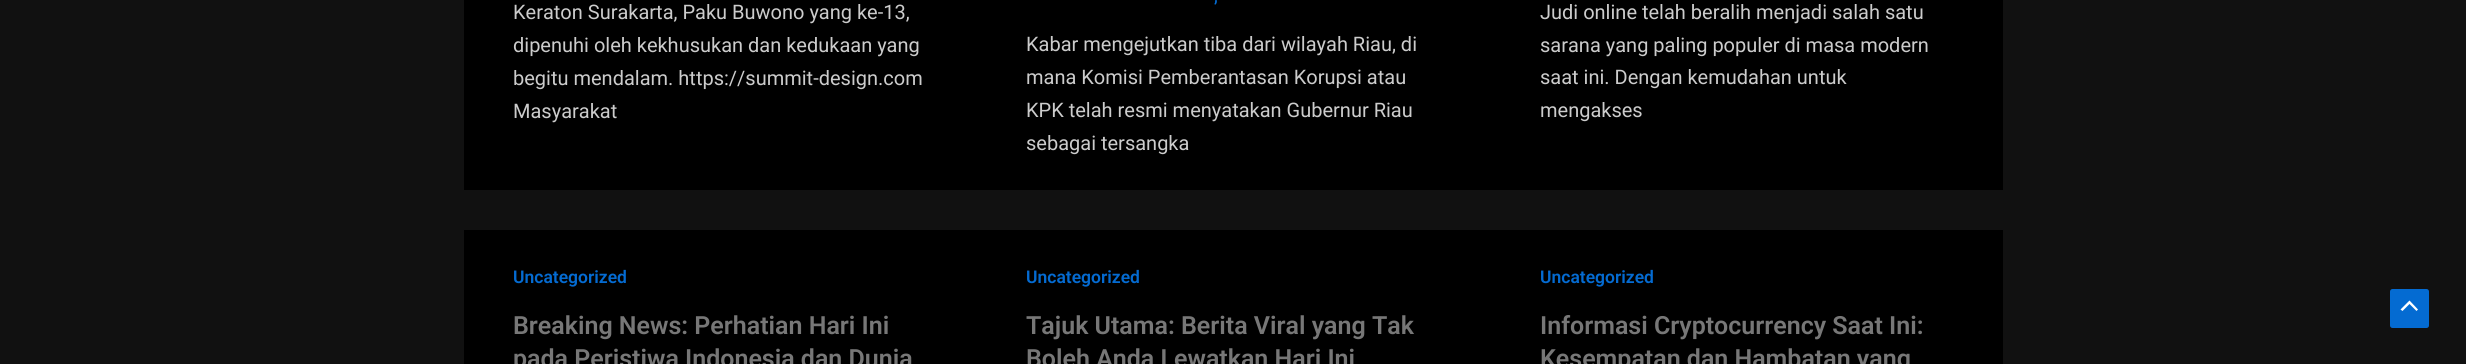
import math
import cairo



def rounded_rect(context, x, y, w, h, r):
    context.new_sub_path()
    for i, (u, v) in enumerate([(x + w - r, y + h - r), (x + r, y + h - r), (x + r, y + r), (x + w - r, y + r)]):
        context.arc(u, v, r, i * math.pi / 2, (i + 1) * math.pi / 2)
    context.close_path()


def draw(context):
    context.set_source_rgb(17 / 255, 17 / 255, 17 / 255)
    context.paint()
    context.set_source_rgb(0, 0, 0)
    context.rectangle(464, 0, 1539, 190)
    context.fill()
    context.rectangle(464, 230, 1539, 134)
    context.fill()
    context.set_source_rgb(4 / 255, 107 / 255, 210 / 255)
    rounded_rect(context, 2390, 289, 39, 39, 2.5)
    context.fill()
    context.set_source_rgb(1, 1, 1)
    context.new_path()
    context.move_to(2418, 309.5)
    context.line_to(2409.5, 300.5)
    context.line_to(2400.5, 309.5)
    context.line_to(2402.5, 311)
    context.line_to(2409.5, 304)
    context.line_to(2416.5, 311)
    context.close_path()
    context.fill()
    context.select_font_face("Roboto")
    context.set_font_size(20)
    context.set_source_rgb(204 / 255, 204 / 255, 204 / 255)
    context.move_to(513, 19)
    context.show_text("Keraton Surakarta, Paku Buwono yang ke-13,")
    context.move_to(513, 52)
    context.show_text("dipenuhi oleh kekhusukan dan kedukaan yang")
    context.move_to(513, 85)
    context.show_text("begitu mendalam. https://summit-design.com")
    context.move_to(513, 118)
    context.show_text("Masyarakat")
    context.select_font_face("Roboto SemiBold")
    context.set_font_size(16)
    context.set_source_rgb(4 / 255, 107 / 255, 210 / 255)
    context.move_to(1214, 2)
    context.show_text(",")
    context.select_font_face("Roboto")
    context.set_font_size(20)
    context.set_source_rgb(204 / 255, 204 / 255, 204 / 255)
    context.move_to(1026, 51)
    context.show_text("Kabar mengejutkan tiba dari wilayah Riau, di")
    context.move_to(1026, 84)
    context.show_text("mana Komisi Pemberantasan Korupsi atau")
    context.move_to(1026, 117)
    context.show_text("KPK telah resmi menyatakan Gubernur Riau")
    context.move_to(1026, 150)
    context.show_text("sebagai tersangka")
    context.move_to(1540, 19)
    context.show_text("Judi online telah beralih menjadi salah satu")
    context.move_to(1540, 52)
    context.show_text("sarana yang paling populer di masa modern")
    context.move_to(1540, 84)
    context.show_text("saat ini. Dengan kemudahan untuk")
    context.move_to(1540, 117)
    context.show_text("mengakses")
    context.select_font_face("Roboto SemiBold")
    context.set_font_size(17.5)
    context.set_source_rgb(4 / 255, 107 / 255, 210 / 255)
    context.move_to(513, 283)
    context.show_text("Uncategorized")
    context.set_font_size(25)
    context.set_source_rgb(119 / 255, 119 / 255, 119 / 255)
    context.move_to(513, 334)
    context.show_text("Breaking News: Perhatian Hari Ini")
    context.move_to(513, 367)
    context.show_text("pada Peristiwa Indonesia dan Dunia")
    context.set_font_size(17.5)
    context.set_source_rgb(4 / 255, 107 / 255, 210 / 255)
    context.move_to(1026, 283)
    context.show_text("Uncategorized")
    context.set_font_size(25)
    context.set_source_rgb(119 / 255, 119 / 255, 119 / 255)
    context.move_to(1026, 334)
    context.show_text("Tajuk Utama: Berita Viral yang Tak")
    context.move_to(1026, 367)
    context.show_text("Boleh Anda Lewatkan Hari Ini")
    context.set_font_size(17.5)
    context.set_source_rgb(4 / 255, 107 / 255, 210 / 255)
    context.move_to(1540, 283)
    context.show_text("Uncategorized")
    context.set_font_size(25)
    context.set_source_rgb(119 / 255, 119 / 255, 119 / 255)
    context.move_to(1540, 334)
    context.show_text("Informasi Cryptocurrency Saat Ini:")
    context.move_to(1540, 367)
    context.show_text("Kesempatan dan Hambatan yang")


surface = cairo.ImageSurface(cairo.Format.RGB24, 2466, 364)
context = cairo.Context(surface)
options = cairo.FontOptions()
options.set_hint_metrics(cairo.HintMetrics.OFF)
options.set_hint_style(cairo.HintStyle.NONE)
context.set_font_options(options)
context.set_miter_limit(4)
draw(context)
surface.write_to_png("out.png")
